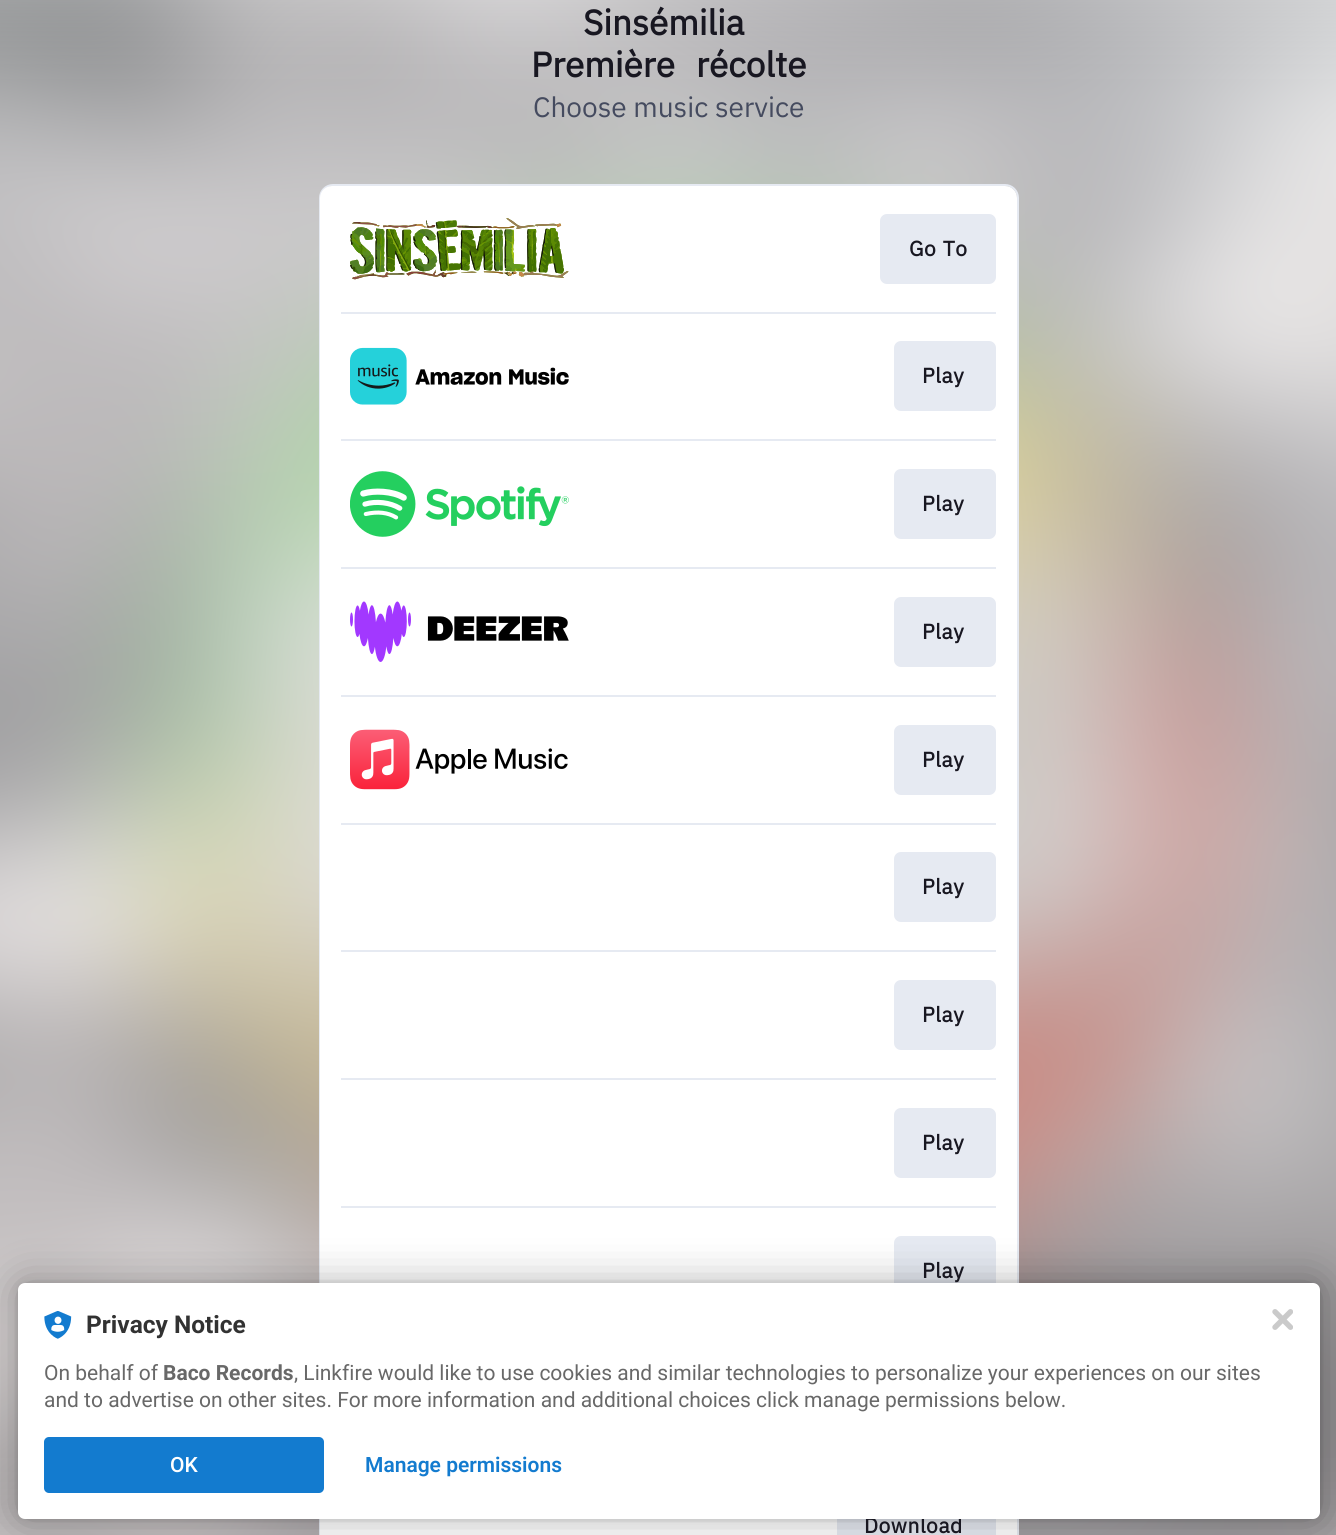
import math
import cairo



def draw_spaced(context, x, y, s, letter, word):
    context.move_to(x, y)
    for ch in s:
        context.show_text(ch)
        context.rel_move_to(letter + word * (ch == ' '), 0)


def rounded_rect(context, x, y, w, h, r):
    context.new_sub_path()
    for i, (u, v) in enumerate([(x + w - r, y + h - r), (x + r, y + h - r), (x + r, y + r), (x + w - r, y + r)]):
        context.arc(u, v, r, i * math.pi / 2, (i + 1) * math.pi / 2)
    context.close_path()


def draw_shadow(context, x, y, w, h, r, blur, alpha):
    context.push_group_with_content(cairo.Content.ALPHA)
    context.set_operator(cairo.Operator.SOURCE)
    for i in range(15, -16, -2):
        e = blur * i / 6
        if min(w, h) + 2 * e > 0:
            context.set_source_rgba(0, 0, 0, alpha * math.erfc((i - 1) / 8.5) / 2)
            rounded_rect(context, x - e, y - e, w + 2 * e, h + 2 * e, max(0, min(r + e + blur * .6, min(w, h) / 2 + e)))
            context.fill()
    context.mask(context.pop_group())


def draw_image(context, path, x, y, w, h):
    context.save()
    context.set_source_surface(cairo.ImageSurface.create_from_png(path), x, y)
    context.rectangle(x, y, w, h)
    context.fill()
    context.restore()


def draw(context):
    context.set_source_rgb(1, 1, 1)
    context.paint()
    draw_image(context, "images/1.png", 0, 0, 1336, 1535)
    rounded_rect(context, 320, 185, 698, 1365, 13)
    context.set_source_rgb(230 / 255, 234 / 255, 242 / 255)
    context.stroke()
    context.set_source_rgb(1, 1, 1)
    rounded_rect(context, 320, 186, 697, 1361, 12)
    context.fill()
    draw_image(context, "images/2.png", 350, 218, 219, 62)
    context.set_source_rgb(230 / 255, 234 / 255, 242 / 255)
    rounded_rect(context, 880, 214, 116, 70, 7)
    context.fill()
    context.rectangle(341, 312, 655, 2)
    context.fill()
    draw_image(context, "images/3.png", 350, 347, 219, 58)
    rounded_rect(context, 894, 341, 102, 70, 7)
    context.fill()
    context.rectangle(341, 439, 655, 2)
    context.fill()
    draw_image(context, "images/4.png", 350, 471, 219, 66)
    rounded_rect(context, 894, 469, 102, 70, 7)
    context.fill()
    context.rectangle(341, 567, 655, 2)
    context.fill()
    draw_image(context, "images/5.png", 350, 601, 219, 61)
    rounded_rect(context, 894, 597, 102, 70, 7)
    context.fill()
    context.rectangle(341, 695, 655, 2)
    context.fill()
    draw_image(context, "images/6.png", 350, 729, 218, 61)
    rounded_rect(context, 894, 725, 102, 70, 7)
    context.fill()
    context.rectangle(341, 823, 655, 2)
    context.fill()
    rounded_rect(context, 894, 852, 102, 70, 7)
    context.fill()
    context.rectangle(341, 950, 655, 2)
    context.fill()
    rounded_rect(context, 894, 980, 102, 70, 7)
    context.fill()
    context.rectangle(341, 1078, 655, 2)
    context.fill()
    rounded_rect(context, 894, 1108, 102, 70, 7)
    context.fill()
    context.rectangle(341, 1206, 655, 2)
    context.fill()
    rounded_rect(context, 894, 1236, 102, 70, 7)
    context.fill()
    context.rectangle(837, 1519, 159, 16)
    context.fill()
    context.set_source_rgb(0, 0, 0)
    draw_shadow(context, 18, 1283, 1302, 236, 7, 3.5, 0.12)
    draw_shadow(context, 18, 1283, 1302, 236, 7, 21, 0.3)
    context.select_font_face("IBM Plex Sans", cairo.FontSlant.NORMAL, cairo.FontWeight.BOLD)
    context.set_font_size(35)
    context.set_source_rgb(24 / 255, 23 / 255, 33 / 255)
    context.move_to(583, 35)
    context.show_text("Sinsémilia")
    draw_spaced(context, 531, 77, "Première récolte", 0, 13)
    context.select_font_face("IBM Plex Sans")
    context.set_font_size(28)
    context.set_source_rgb(69 / 255, 75 / 255, 95 / 255)
    context.move_to(533, 117)
    context.show_text("Choose music service")
    context.select_font_face("IBM Plex Sans", cairo.FontSlant.NORMAL, cairo.FontWeight.BOLD)
    context.set_font_size(21)
    context.set_source_rgb(24 / 255, 23 / 255, 33 / 255)
    draw_spaced(context, 909, 256, "Go To", 0.5, 1)
    draw_spaced(context, 922, 383, "Play", 0.5, 0)
    draw_spaced(context, 922, 511, "Play", 0.5, 0)
    draw_spaced(context, 922, 639, "Play", 0.5, 0)
    draw_spaced(context, 922, 767, "Play", 0.5, 0)
    draw_spaced(context, 922, 894, "Play", 0.5, 0)
    draw_spaced(context, 922, 1022, "Play", 0.5, 0)
    draw_spaced(context, 922, 1150, "Play", 0.5, 0)
    draw_spaced(context, 922, 1278, "Play", 0.5, 0)
    draw_spaced(context, 864, 1533, "Download", 0.5, 0)
    context.set_source_rgb(1, 1, 1)
    rounded_rect(context, 18, 1283, 1302, 236, 7)
    context.fill()
    draw_image(context, "images/7.png", 44, 1311, 28, 28)
    context.select_font_face("Roboto", cairo.FontSlant.NORMAL, cairo.FontWeight.BOLD)
    context.set_font_size(24.5)
    context.set_source_rgb(50 / 255, 50 / 255, 50 / 255)
    context.move_to(86, 1333)
    context.show_text("Privacy Notice")
    context.select_font_face("Roboto")
    context.set_font_size(21)
    context.set_source_rgb(104 / 255, 104 / 255, 104 / 255)
    context.move_to(44, 1380)
    context.show_text("On behalf of")
    context.select_font_face("Roboto", cairo.FontSlant.NORMAL, cairo.FontWeight.BOLD)
    context.move_to(163, 1380)
    context.show_text("Baco Records")
    context.select_font_face("Roboto")
    context.move_to(294, 1380)
    context.show_text(", Linkfire would like to use cookies and similar technologies to personalize your experiences on our sites")
    context.move_to(44, 1407)
    context.show_text("and to advertise on other sites. For more information and additional choices click manage permissions below.")
    context.set_source_rgb(19 / 255, 123 / 255, 207 / 255)
    rounded_rect(context, 44, 1437, 280, 56, 5)
    context.fill()
    context.select_font_face("Roboto Medium")
    context.set_source_rgb(1, 1, 1)
    context.move_to(170, 1472)
    context.show_text("OK")
    context.select_font_face("Roboto SemiBold")
    context.set_source_rgb(19 / 255, 123 / 255, 207 / 255)
    context.move_to(365, 1472)
    context.show_text("Manage permissions")
    draw_image(context, "images/8.png", 1272, 1309, 21, 21)


surface = cairo.ImageSurface(cairo.Format.RGB24, 1336, 1535)
context = cairo.Context(surface)
options = cairo.FontOptions()
options.set_hint_metrics(cairo.HintMetrics.OFF)
options.set_hint_style(cairo.HintStyle.NONE)
context.set_font_options(options)
context.set_miter_limit(4)
draw(context)
surface.write_to_png("out.png")
